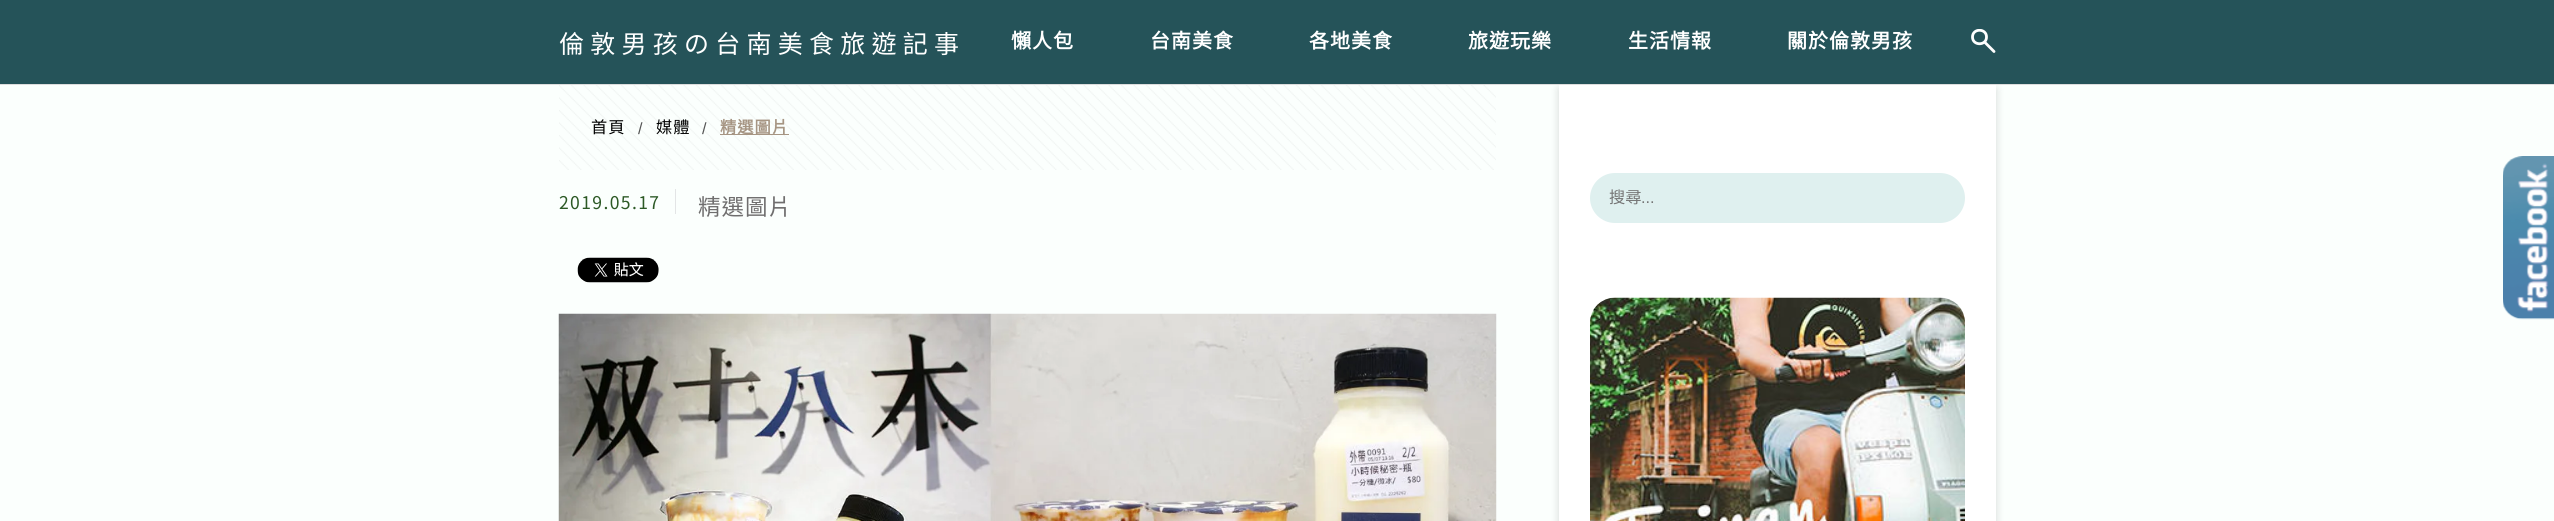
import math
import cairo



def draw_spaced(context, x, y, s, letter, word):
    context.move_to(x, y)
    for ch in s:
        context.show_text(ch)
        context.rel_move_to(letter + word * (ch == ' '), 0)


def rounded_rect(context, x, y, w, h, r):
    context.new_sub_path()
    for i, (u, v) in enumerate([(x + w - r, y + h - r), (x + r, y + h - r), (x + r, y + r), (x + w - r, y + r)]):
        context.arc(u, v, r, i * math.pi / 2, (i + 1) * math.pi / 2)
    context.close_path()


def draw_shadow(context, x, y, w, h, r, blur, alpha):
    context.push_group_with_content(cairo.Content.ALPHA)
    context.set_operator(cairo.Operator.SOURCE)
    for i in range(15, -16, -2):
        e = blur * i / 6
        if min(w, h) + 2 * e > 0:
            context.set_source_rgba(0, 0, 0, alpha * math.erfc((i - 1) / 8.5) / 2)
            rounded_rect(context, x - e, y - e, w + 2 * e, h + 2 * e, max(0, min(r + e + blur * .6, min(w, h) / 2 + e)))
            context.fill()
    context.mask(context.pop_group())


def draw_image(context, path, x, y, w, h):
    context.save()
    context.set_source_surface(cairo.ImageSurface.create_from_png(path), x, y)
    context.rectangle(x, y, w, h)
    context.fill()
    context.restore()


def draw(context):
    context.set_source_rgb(251 / 255, 1, 253 / 255)
    context.paint()
    context.set_source_rgb(0, 0, 0)
    draw_shadow(context, 1559, 89, 437, 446, 0, 4.5, 0.15)
    context.set_source_rgb(37 / 255, 83 / 255, 89 / 255)
    context.rectangle(0, 0, 2554, 84)
    context.fill()
    context.set_source_rgb(221 / 255, 221 / 255, 221 / 255)
    context.rectangle(0, 84, 2554, 1)
    context.fill()
    context.save()
    context.rectangle(1971, 29, 25, 25)
    context.clip()
    context.new_path()
    context.move_to(1985, 42.5)
    context.line_to(1994, 51.5)
    context.move_to(1986.5, 37)
    context.curve_to(1986.5, 46, 1972.5, 46, 1972.5, 37)
    context.curve_to(1972.5, 28, 1986.5, 28, 1986.5, 37)
    context.close_path()
    context.set_source_rgb(1, 1, 1)
    context.set_line_width(2.8)
    context.set_line_cap(cairo.LineCap.ROUND)
    context.stroke()
    context.restore()
    draw_image(context, "images/1.png", 559, 85, 937, 85)
    context.set_source_rgb(166 / 255, 149 / 255, 131 / 255)
    context.rectangle(720, 134, 69, 1)
    context.fill()
    context.set_source_rgb(227 / 255, 229 / 255, 230 / 255)
    context.rectangle(675, 189, 1, 25)
    context.fill()
    draw_image(context, "images/2.png", 577, 257, 82, 26)
    draw_image(context, "images/3.png", 558, 313, 939, 208)
    context.set_source_rgb(1, 1, 1)
    context.rectangle(1559, 85, 437, 436)
    context.fill()
    context.set_source_rgb(223 / 255, 240 / 255, 239 / 255)
    rounded_rect(context, 1590, 173, 375, 50, 25)
    context.fill()
    draw_image(context, "images/4.png", 1590, 297, 375, 224)
    draw_image(context, "images/5.png", 2503, 156, 51, 164)
    context.select_font_face("Noto Sans TC Thin")
    context.set_font_size(25)
    context.set_source_rgb(1, 1, 1)
    draw_spaced(context, 559, 53, "倫敦男孩の台南美食旅遊記事", 6.25, 0)
    context.select_font_face("Noto Sans CJK TC", cairo.FontSlant.NORMAL, cairo.FontWeight.BOLD)
    context.set_font_size(20)
    draw_spaced(context, 1011, 48, "懶人包", 1, 0)
    draw_spaced(context, 1150, 48, "台南美食", 1, 0)
    draw_spaced(context, 1309, 48, "各地美食", 1, 0)
    draw_spaced(context, 1468, 48, "旅遊玩樂", 1, 0)
    draw_spaced(context, 1628, 48, "生活情報", 1, 0)
    draw_spaced(context, 1787, 48, "關於倫敦男孩", 1, 0)
    context.select_font_face("Noto Sans CJK TC")
    context.set_font_size(16.25)
    context.set_source_rgb(0, 0, 0)
    draw_spaced(context, 591, 133, "首頁", 1, 0)
    context.select_font_face("Liberation Sans")
    context.set_source_rgb(85 / 255, 85 / 255, 85 / 255)
    draw_spaced(context, 638, 134, "/", 1, 0)
    context.select_font_face("Noto Sans CJK TC")
    context.set_source_rgb(0, 0, 0)
    draw_spaced(context, 656, 133, "媒體", 1, 0)
    context.select_font_face("Liberation Sans")
    context.set_source_rgb(85 / 255, 85 / 255, 85 / 255)
    draw_spaced(context, 702, 134, "/", 1, 0)
    context.select_font_face("Noto Sans CJK TC", cairo.FontSlant.NORMAL, cairo.FontWeight.BOLD)
    context.set_source_rgb(166 / 255, 149 / 255, 131 / 255)
    draw_spaced(context, 720, 133, "精選圖片", 1, 0)
    context.select_font_face("Noto Sans TC Thin")
    context.set_font_size(17.5)
    context.set_source_rgb(44 / 255, 89 / 255, 37 / 255)
    draw_spaced(context, 559, 209, "2019.05.17", 1.4, 0)
    context.set_font_size(22.5)
    context.set_source_rgb(111 / 255, 110 / 255, 110 / 255)
    draw_spaced(context, 698, 215, "精選圖片", 1, 0)
    context.select_font_face("Noto Sans CJK TC")
    context.set_font_size(16.25)
    context.set_source_rgb(117 / 255, 117 / 255, 117 / 255)
    context.move_to(1609, 203)
    context.show_text("搜尋")
    context.select_font_face("Liberation Sans")
    context.move_to(1641, 203)
    context.show_text("...")


surface = cairo.ImageSurface(cairo.Format.RGB24, 2554, 521)
context = cairo.Context(surface)
options = cairo.FontOptions()
options.set_hint_metrics(cairo.HintMetrics.OFF)
options.set_hint_style(cairo.HintStyle.NONE)
context.set_font_options(options)
context.set_miter_limit(4)
draw(context)
surface.write_to_png("out.png")
